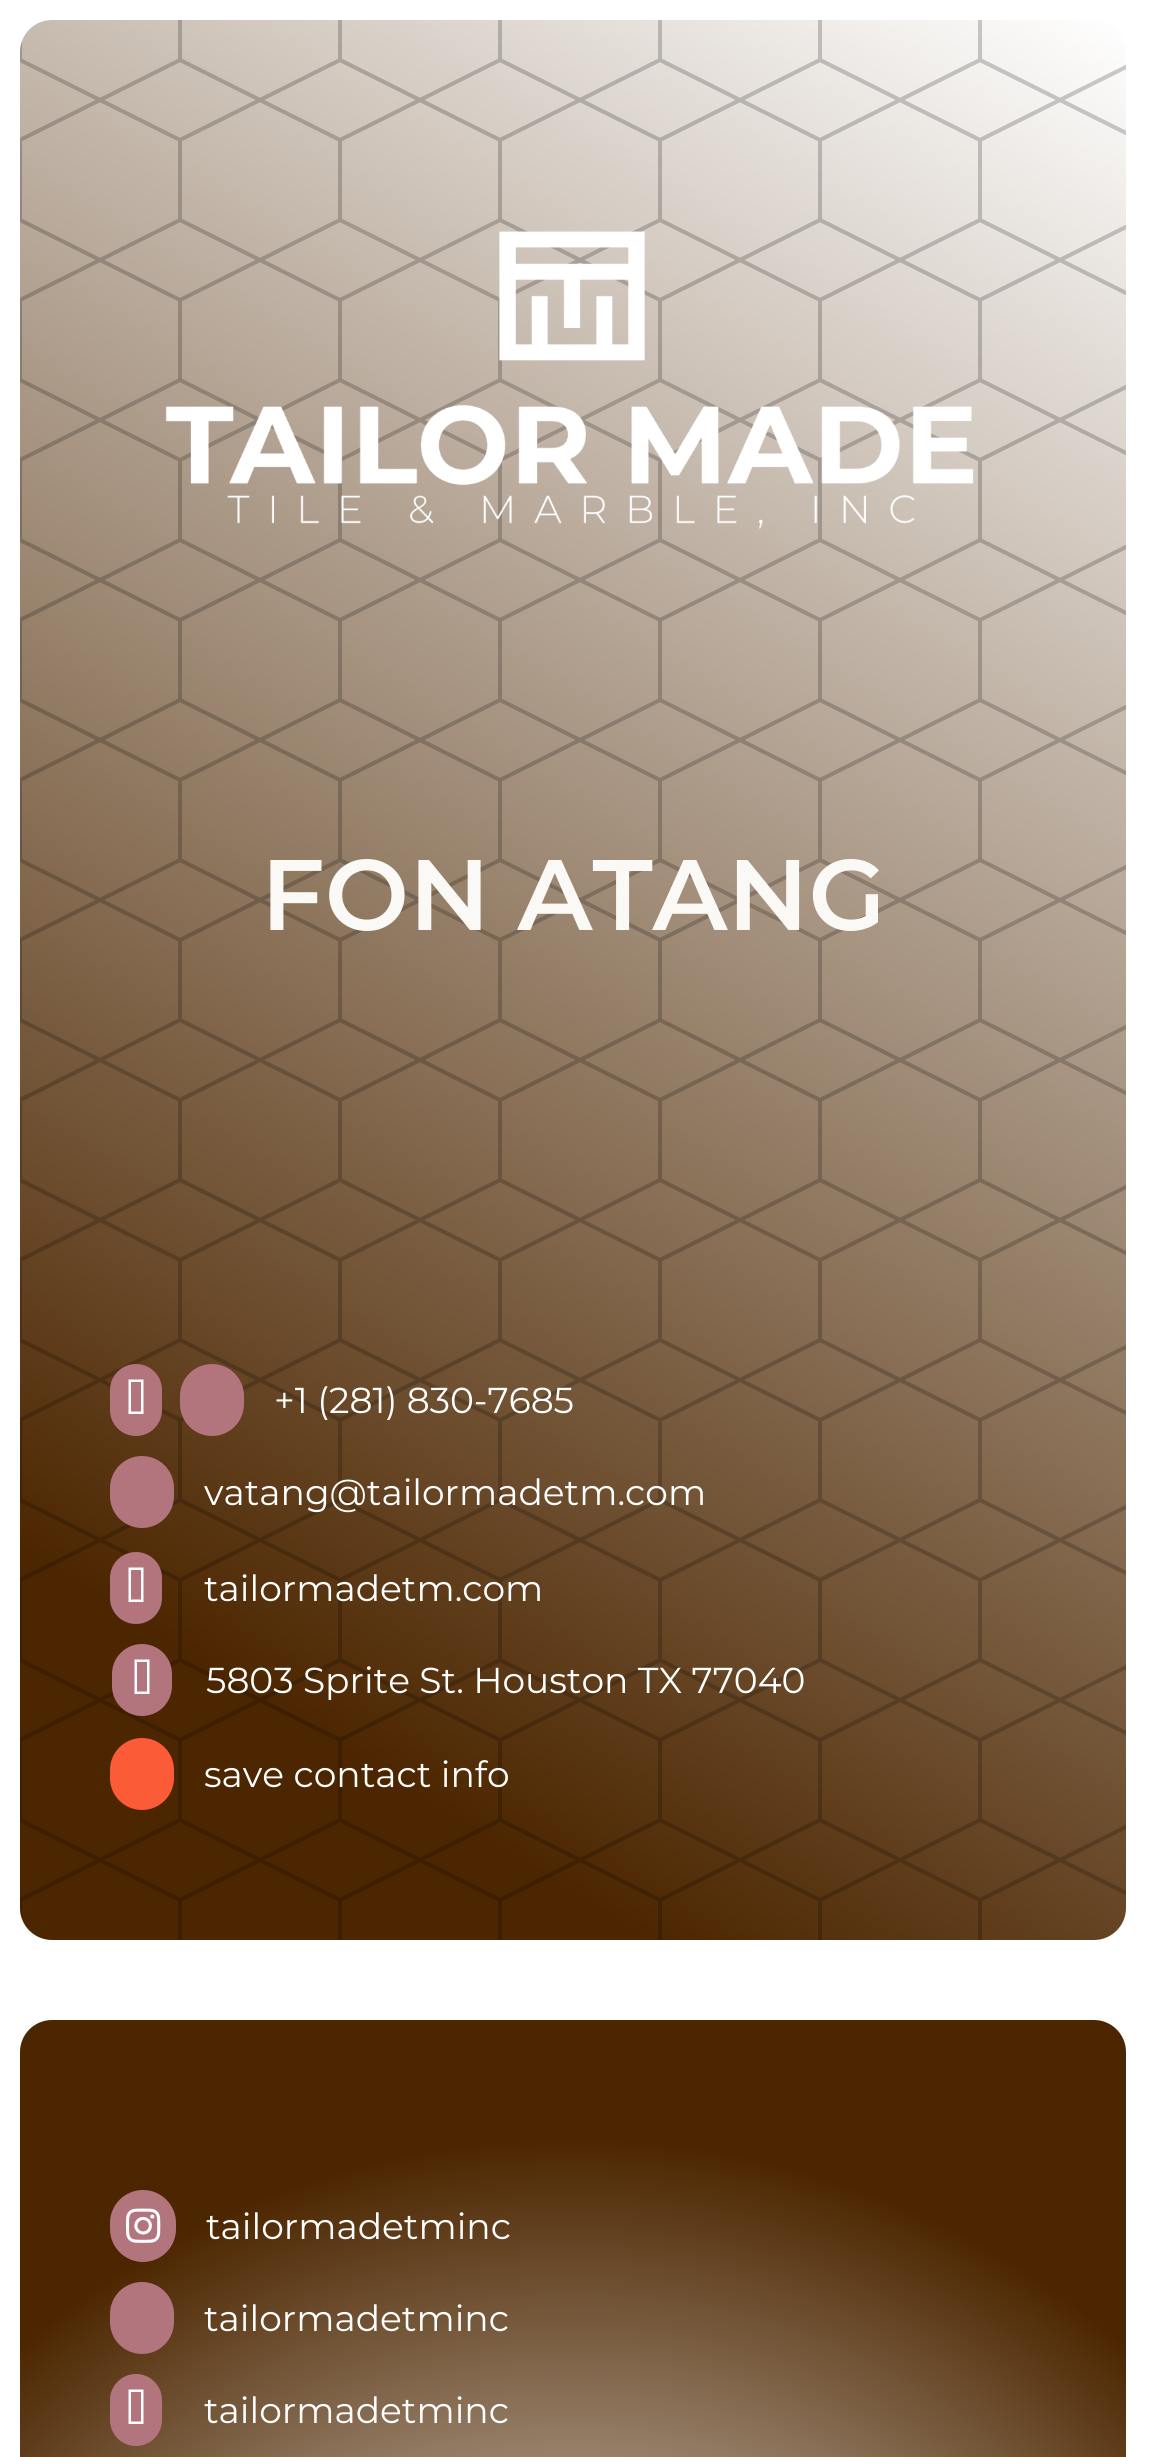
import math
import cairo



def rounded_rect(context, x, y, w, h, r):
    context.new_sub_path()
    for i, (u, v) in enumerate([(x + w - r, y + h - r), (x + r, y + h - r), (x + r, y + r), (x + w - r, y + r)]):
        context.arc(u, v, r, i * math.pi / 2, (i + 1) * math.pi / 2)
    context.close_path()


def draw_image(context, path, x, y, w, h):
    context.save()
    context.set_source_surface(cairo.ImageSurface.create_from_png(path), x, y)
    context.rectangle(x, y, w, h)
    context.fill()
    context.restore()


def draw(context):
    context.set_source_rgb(1, 1, 1)
    context.paint()
    gradient = cairo.LinearGradient(-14, 1919, 1160, 41)
    gradient.add_color_stop_rgba(0.15, 76 / 255, 38 / 255, 0, 1)
    gradient.add_color_stop_rgba(1, 1, 1, 1, 1)
    context.set_source(gradient)
    rounded_rect(context, 20, 20, 1106, 1920, 32)
    context.fill()
    draw_image(context, "images/1.png", 20, 20, 1106, 1920)
    draw_image(context, "images/2.png", 165, 231, 809, 298)
    context.set_source_rgb(178 / 255, 116 / 255, 125 / 255)
    rounded_rect(context, 110, 1364, 52, 72, 26)
    context.fill()
    context.set_source_rgb(254 / 255, 254 / 255, 254 / 255)
    context.new_path()
    context.move_to(131, 1411.5)
    context.line_to(131, 1382)
    context.line_to(141, 1382)
    context.line_to(141, 1411.5)
    context.close_path()
    context.move_to(128.5, 1414)
    context.line_to(143.5, 1414)
    context.line_to(143.5, 1379.5)
    context.line_to(128.5, 1379.5)
    context.close_path()
    context.fill()
    context.set_source_rgb(178 / 255, 116 / 255, 125 / 255)
    rounded_rect(context, 180, 1364, 64, 72, 32)
    context.fill()
    rounded_rect(context, 110, 1456, 64, 72, 32)
    context.fill()
    rounded_rect(context, 110, 1552, 52, 72, 26)
    context.fill()
    context.set_source_rgb(254 / 255, 254 / 255, 254 / 255)
    context.new_path()
    context.move_to(131, 1599.5)
    context.line_to(131, 1570)
    context.line_to(141, 1570)
    context.line_to(141, 1599.5)
    context.close_path()
    context.move_to(128.5, 1602)
    context.line_to(143.5, 1602)
    context.line_to(143.5, 1567.5)
    context.line_to(128.5, 1567.5)
    context.close_path()
    context.fill()
    context.set_source_rgb(178 / 255, 116 / 255, 125 / 255)
    rounded_rect(context, 112, 1644, 60, 72, 30)
    context.fill()
    context.set_source_rgb(254 / 255, 254 / 255, 254 / 255)
    context.new_path()
    context.move_to(137, 1691.5)
    context.line_to(137, 1662)
    context.line_to(147, 1662)
    context.line_to(147, 1691.5)
    context.close_path()
    context.move_to(134.5, 1694)
    context.line_to(149.5, 1694)
    context.line_to(149.5, 1659.5)
    context.line_to(134.5, 1659.5)
    context.close_path()
    context.fill()
    context.set_source_rgb(252 / 255, 91 / 255, 55 / 255)
    rounded_rect(context, 110, 1738, 64, 72, 32)
    context.fill()
    gradient = cairo.RadialGradient(573, 2981, 0, 573, 2981, 1109)
    gradient.add_color_stop_rgba(0.07, 1, 1, 1, 1)
    gradient.add_color_stop_rgba(0.76, 76 / 255, 38 / 255, 0, 1)
    gradient.add_color_stop_rgba(1, 76 / 255, 38 / 255, 0, 1)
    context.set_source(gradient)
    rounded_rect(context, 20, 2020, 1106, 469, 32)
    context.fill()
    context.set_source_rgb(178 / 255, 116 / 255, 125 / 255)
    rounded_rect(context, 110, 2190, 66, 72, 33)
    context.fill()
    draw_image(context, "images/3.png", 126, 2208, 35, 35)
    rounded_rect(context, 110, 2282, 64, 72, 32)
    context.fill()
    rounded_rect(context, 110, 2374, 52, 72, 26)
    context.fill()
    context.set_source_rgb(254 / 255, 254 / 255, 254 / 255)
    context.new_path()
    context.move_to(131, 2421.5)
    context.line_to(131, 2392)
    context.line_to(141, 2392)
    context.line_to(141, 2421.5)
    context.close_path()
    context.move_to(128.5, 2424)
    context.line_to(143.5, 2424)
    context.line_to(143.5, 2389.5)
    context.line_to(128.5, 2389.5)
    context.close_path()
    context.fill()
    context.select_font_face("Montserrat SemiBold")
    context.set_font_size(100)
    context.set_source_rgb(250 / 255, 249 / 255, 246 / 255)
    context.move_to(261, 930)
    context.show_text("FON ATANG")
    context.select_font_face("Montserrat")
    context.set_font_size(36)
    context.set_source_rgb(1, 1, 1)
    context.move_to(274, 1413)
    context.show_text("+1 (281) 830-7685")
    context.move_to(204, 1505)
    context.show_text("vatang@tailormadetm.com")
    context.move_to(204, 1601)
    context.show_text("tailormadetm.com")
    context.move_to(206, 1693)
    context.show_text("5803 Sprite St. Houston TX 77040")
    context.move_to(204, 1787)
    context.show_text("save contact info")
    context.move_to(206, 2239)
    context.show_text("tailormadetminc")
    context.move_to(204, 2331)
    context.show_text("tailormadetminc")
    context.move_to(204, 2423)
    context.show_text("tailormadetminc")


surface = cairo.ImageSurface(cairo.Format.RGB24, 1164, 2457)
context = cairo.Context(surface)
options = cairo.FontOptions()
options.set_hint_metrics(cairo.HintMetrics.OFF)
options.set_hint_style(cairo.HintStyle.NONE)
context.set_font_options(options)
context.set_miter_limit(4)
draw(context)
surface.write_to_png("out.png")
